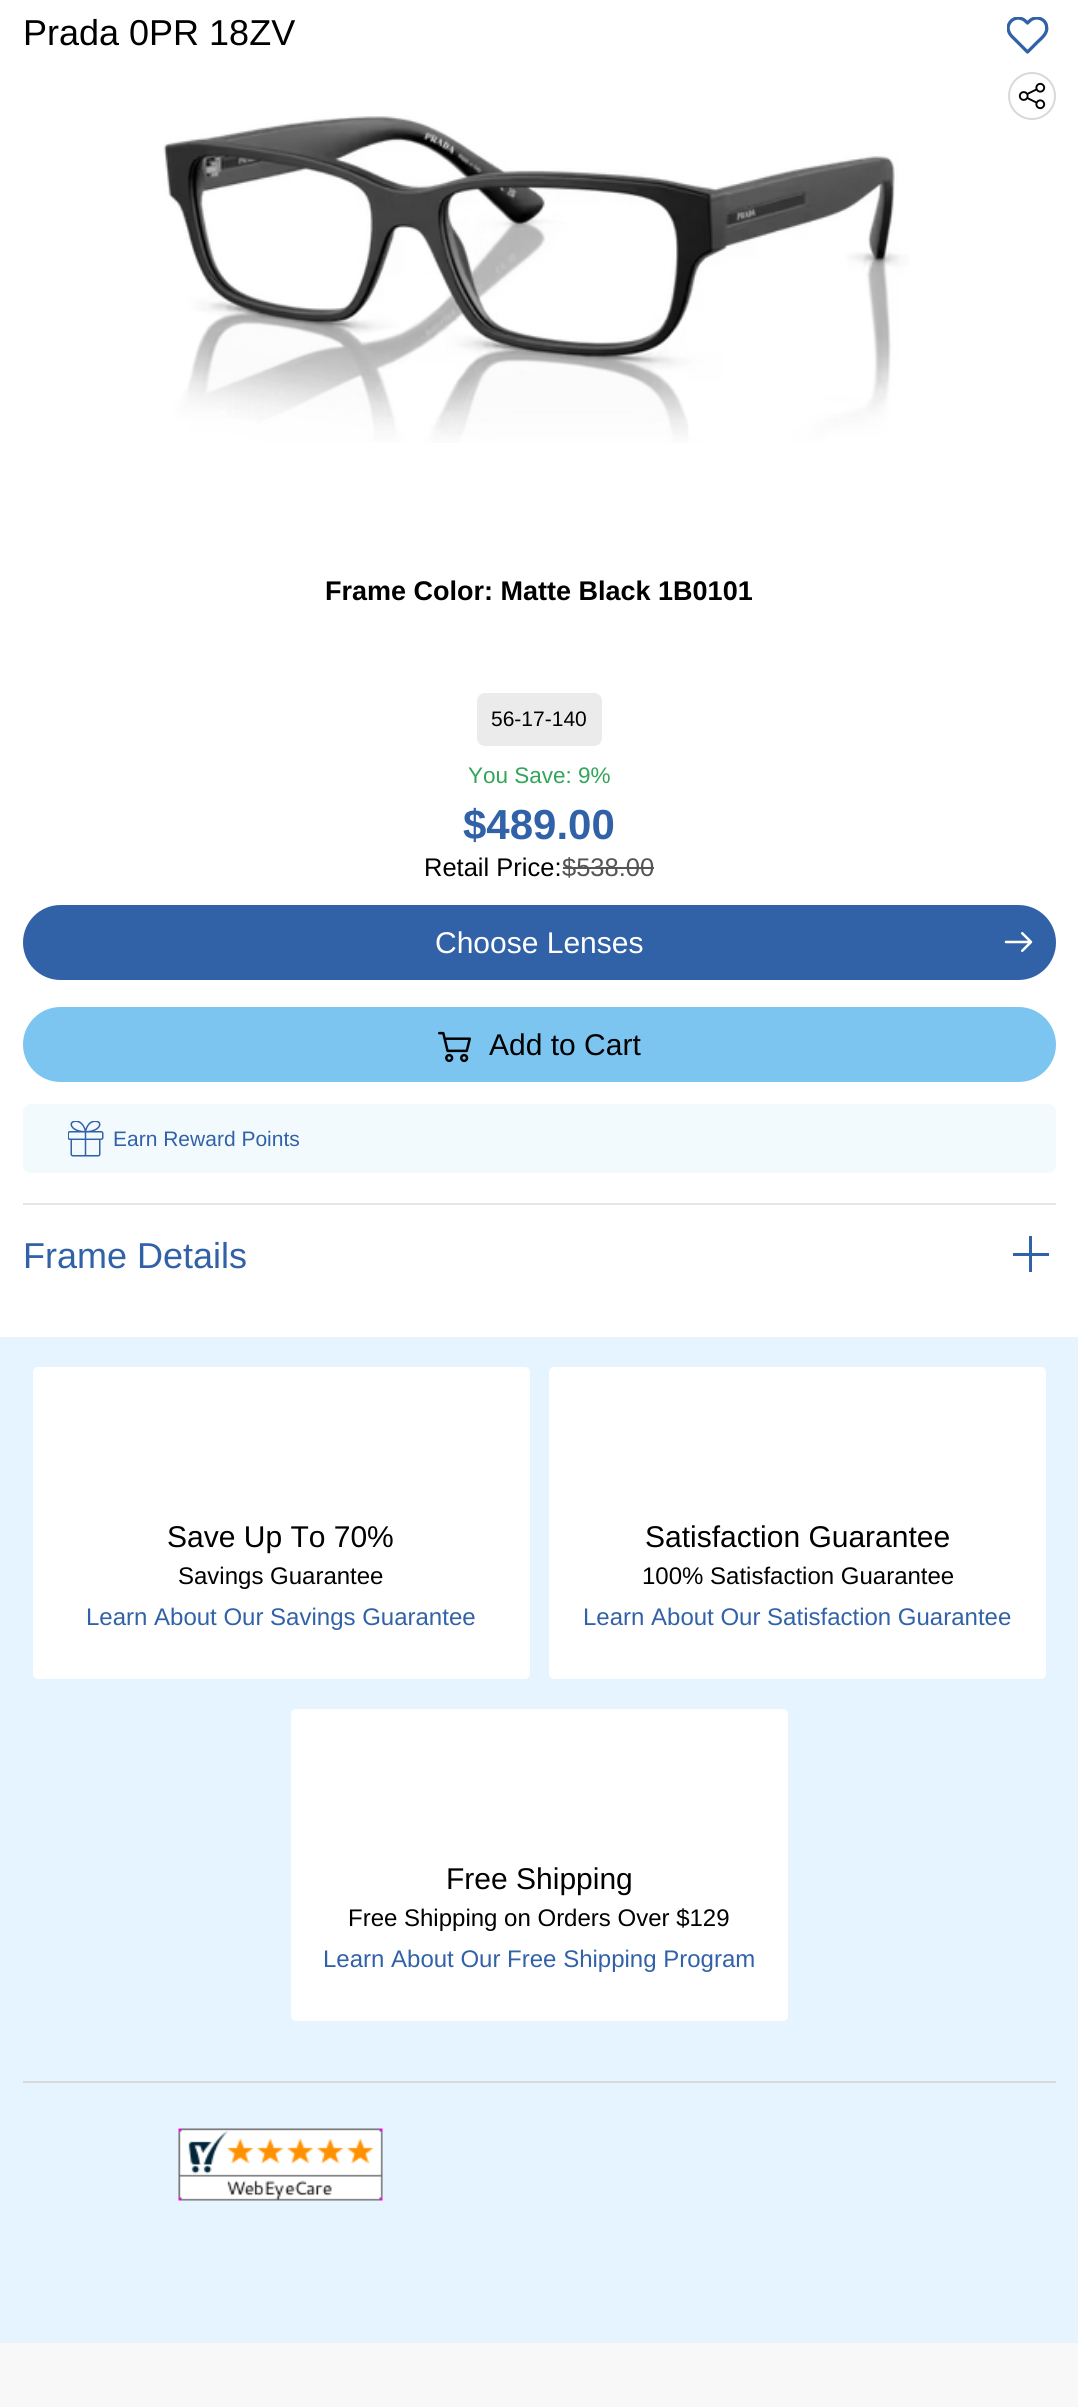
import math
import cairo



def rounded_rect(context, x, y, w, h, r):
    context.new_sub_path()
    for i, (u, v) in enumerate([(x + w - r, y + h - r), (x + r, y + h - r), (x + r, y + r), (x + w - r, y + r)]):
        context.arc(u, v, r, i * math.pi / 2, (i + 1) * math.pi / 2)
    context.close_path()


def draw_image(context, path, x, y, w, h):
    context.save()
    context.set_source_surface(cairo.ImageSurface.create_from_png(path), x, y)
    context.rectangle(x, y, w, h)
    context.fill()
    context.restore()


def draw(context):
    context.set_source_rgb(1, 1, 1)
    context.paint()
    context.save()
    context.rectangle(1007, 17, 42, 37)
    context.clip()
    context.new_path()
    context.move_to(1044, 21)
    context.curve_to(1040, 17, 1033.5, 17, 1029.5, 21)
    context.line_to(1027.5, 23)
    context.curve_to(1025.5, 21, 1023.5, 19, 1021, 18.5)
    context.curve_to(1013, 16, 1005.5, 24.5, 1009, 32)
    context.curve_to(1010, 35, 1013, 37.5, 1015.5, 40)
    context.line_to(1027.5, 52)
    context.line_to(1037, 42.5)
    context.curve_to(1041.5, 38, 1048, 33.5, 1046.5, 26.5)
    context.curve_to(1046.5, 24.5, 1045.5, 22.5, 1044, 21)
    context.close_path()
    context.set_source_rgb(49 / 255, 98 / 255, 168 / 255)
    context.set_line_width(3.3)
    context.set_line_cap(cairo.LineCap.ROUND)
    context.set_line_join(cairo.LineJoin.ROUND)
    context.stroke()
    context.restore()
    context.arc(1032, 96, 23, 0, 2 * math.pi)
    context.set_source_rgb(217 / 255, 217 / 255, 217 / 255)
    context.stroke()
    draw_image(context, "images/1.png", 1018, 82, 28, 28)
    draw_image(context, "images/2.png", 163, 116, 746, 327)
    context.set_source_rgb(235 / 255, 235 / 255, 235 / 255)
    rounded_rect(context, 477, 693, 125, 53, 8)
    context.fill()
    context.set_source_rgb(85 / 255, 85 / 255, 85 / 255)
    context.rectangle(563, 867, 91, 2)
    context.fill()
    context.set_source_rgb(49 / 255, 98 / 255, 168 / 255)
    rounded_rect(context, 23, 905, 1033, 75, 37.5)
    context.fill()
    draw_image(context, "images/3.png", 1004, 932, 29, 20)
    context.set_source_rgb(124 / 255, 197 / 255, 241 / 255)
    rounded_rect(context, 23, 1007, 1033, 75, 37.5)
    context.fill()
    draw_image(context, "images/4.png", 438, 1031, 33, 32)
    context.set_source_rgb(242 / 255, 250 / 255, 253 / 255)
    rounded_rect(context, 23, 1104, 1033, 69, 8)
    context.fill()
    draw_image(context, "images/5.png", 68, 1121, 36, 36)
    context.set_source_rgb(229 / 255, 229 / 255, 229 / 255)
    context.rectangle(23, 1203, 1033, 2)
    context.fill()
    context.set_source_rgb(49 / 255, 98 / 255, 168 / 255)
    context.rectangle(1013, 1253, 36, 3)
    context.fill()
    context.rectangle(1029, 1236, 3, 36)
    context.fill()
    context.set_source_rgb(230 / 255, 244 / 255, 1)
    context.rectangle(0, 1337, 1078, 1006)
    context.fill()
    context.set_source_rgb(1, 1, 1)
    rounded_rect(context, 33, 1367, 497, 312, 5)
    context.fill()
    rounded_rect(context, 549, 1367, 497, 312, 5)
    context.fill()
    rounded_rect(context, 291, 1709, 497, 312, 5)
    context.fill()
    context.set_source_rgb(217 / 255, 217 / 255, 217 / 255)
    context.rectangle(23, 2081, 1033, 2)
    context.fill()
    draw_image(context, "images/6.png", 178, 2128, 205, 73)
    context.set_source_rgb(248 / 255, 248 / 255, 248 / 255)
    context.rectangle(0, 2343, 1078, 64)
    context.fill()
    context.select_font_face("Liberation Sans")
    context.set_font_size(36)
    context.set_source_rgb(0, 0, 0)
    context.move_to(23, 45)
    context.show_text("Prada 0PR 18ZV")
    context.select_font_face("Liberation Sans", cairo.FontSlant.NORMAL, cairo.FontWeight.BOLD)
    context.set_font_size(27)
    context.move_to(325, 600)
    context.show_text("Frame Color: Matte Black 1B0101")
    context.select_font_face("Liberation Sans")
    context.set_font_size(21)
    context.move_to(491, 726)
    context.show_text("56-17-140")
    context.set_font_size(22.5)
    context.set_source_rgb(50 / 255, 165 / 255, 88 / 255)
    context.move_to(468, 783)
    context.show_text("You Save: 9%")
    context.select_font_face("Liberation Sans", cairo.FontSlant.NORMAL, cairo.FontWeight.BOLD)
    context.set_font_size(42)
    context.set_source_rgb(49 / 255, 98 / 255, 168 / 255)
    context.move_to(463, 839)
    context.show_text("$489.00")
    context.select_font_face("Liberation Sans")
    context.set_font_size(25.5)
    context.set_source_rgb(0, 0, 0)
    context.move_to(424, 876)
    context.show_text("Retail Price:")
    context.set_source_rgb(85 / 255, 85 / 255, 85 / 255)
    context.move_to(562, 876)
    context.show_text("$538.00")
    context.set_font_size(30)
    context.set_source_rgb(1, 1, 1)
    context.move_to(435, 953)
    context.show_text("Choose Lenses")
    context.set_source_rgb(0, 0, 0)
    context.move_to(489, 1055)
    context.show_text("Add to Cart")
    context.set_font_size(21)
    context.set_source_rgb(49 / 255, 98 / 255, 168 / 255)
    context.move_to(113, 1146)
    context.show_text("Earn Reward Points")
    context.set_font_size(36)
    context.move_to(23, 1268)
    context.show_text("Frame Details")
    context.set_font_size(30)
    context.set_source_rgb(0, 0, 0)
    context.move_to(167, 1547)
    context.show_text("Save Up To 70%")
    context.set_font_size(24)
    context.move_to(178, 1584)
    context.show_text("Savings Guarantee")
    context.set_source_rgb(49 / 255, 98 / 255, 168 / 255)
    context.move_to(86, 1625)
    context.show_text("Learn About Our Savings Guarantee")
    context.set_font_size(30)
    context.set_source_rgb(0, 0, 0)
    context.move_to(645, 1547)
    context.show_text("Satisfaction Guarantee")
    context.set_font_size(24)
    context.move_to(642, 1584)
    context.show_text("100% Satisfaction Guarantee")
    context.set_source_rgb(49 / 255, 98 / 255, 168 / 255)
    context.move_to(583, 1625)
    context.show_text("Learn About Our Satisfaction Guarantee")
    context.set_font_size(30)
    context.set_source_rgb(0, 0, 0)
    context.move_to(446, 1889)
    context.show_text("Free Shipping")
    context.set_font_size(24)
    context.move_to(348, 1926)
    context.show_text("Free Shipping on Orders Over $129")
    context.set_source_rgb(49 / 255, 98 / 255, 168 / 255)
    context.move_to(323, 1967)
    context.show_text("Learn About Our Free Shipping Program")


surface = cairo.ImageSurface(cairo.Format.RGB24, 1078, 2407)
context = cairo.Context(surface)
options = cairo.FontOptions()
options.set_hint_metrics(cairo.HintMetrics.OFF)
options.set_hint_style(cairo.HintStyle.NONE)
context.set_font_options(options)
context.set_miter_limit(4)
draw(context)
surface.write_to_png("out.png")
